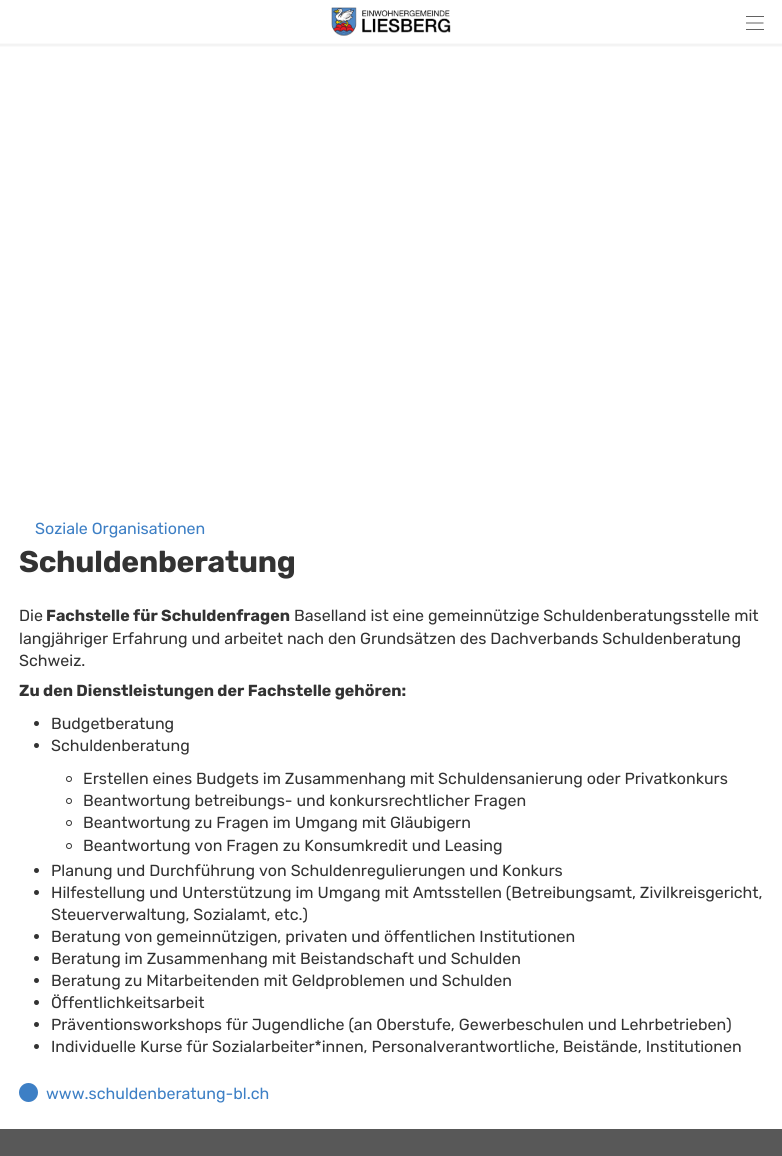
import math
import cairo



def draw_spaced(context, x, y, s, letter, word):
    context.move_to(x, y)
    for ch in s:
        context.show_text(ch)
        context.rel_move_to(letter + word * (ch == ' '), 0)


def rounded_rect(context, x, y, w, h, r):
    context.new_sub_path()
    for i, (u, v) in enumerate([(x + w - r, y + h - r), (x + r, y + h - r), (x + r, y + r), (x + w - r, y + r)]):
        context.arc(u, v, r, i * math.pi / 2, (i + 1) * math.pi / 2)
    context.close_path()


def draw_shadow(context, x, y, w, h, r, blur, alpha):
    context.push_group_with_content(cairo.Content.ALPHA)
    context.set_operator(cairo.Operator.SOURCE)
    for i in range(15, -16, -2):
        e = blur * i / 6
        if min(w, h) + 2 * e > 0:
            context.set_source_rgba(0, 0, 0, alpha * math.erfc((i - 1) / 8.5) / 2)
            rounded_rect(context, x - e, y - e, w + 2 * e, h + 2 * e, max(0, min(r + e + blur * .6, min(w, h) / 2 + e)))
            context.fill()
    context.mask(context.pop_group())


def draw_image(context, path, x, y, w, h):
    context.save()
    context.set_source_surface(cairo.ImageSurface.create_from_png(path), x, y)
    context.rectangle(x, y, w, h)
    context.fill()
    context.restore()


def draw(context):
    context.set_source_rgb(1, 1, 1)
    context.paint()
    context.save()
    context.rectangle(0, 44, 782, 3)
    context.clip()
    context.set_source_rgb(0, 0, 0)
    draw_shadow(context, -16, -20, 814, 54, 0, 6.5, 1)
    context.restore()
    context.set_source_rgb(250 / 255, 250 / 255, 250 / 255)
    context.rectangle(0, 43, 782, 1)
    context.fill()
    draw_image(context, "images/1.png", 331, 7, 120, 29)
    context.set_source_rgb(98 / 255, 98 / 255, 98 / 255)
    context.rectangle(746, 16, 18, 1)
    context.fill()
    context.new_path()
    context.move_to(746, 23)
    context.line_to(763.5, 23)
    context.set_source_rgb(59 / 255, 59 / 255, 59 / 255)
    context.set_line_width(0.8)
    context.set_line_join(cairo.LineJoin.ROUND)
    context.stroke()
    context.set_source_rgb(98 / 255, 98 / 255, 98 / 255)
    context.rectangle(746, 29, 18, 1)
    context.fill()
    context.set_source_rgb(51 / 255, 51 / 255, 51 / 255)
    context.arc(36.5, 723.5, 2.5, 0, 2 * math.pi)
    context.fill()
    context.arc(36.5, 745.5, 2.5, 0, 2 * math.pi)
    context.fill()
    context.arc(69, 779, 2.5, 0, 2 * math.pi)
    context.set_line_width(1)
    context.set_line_join(cairo.LineJoin.MITER)
    context.stroke()
    context.arc(69, 801, 2.5, 0, 2 * math.pi)
    context.stroke()
    context.arc(69, 823, 2.5, 0, 2 * math.pi)
    context.stroke()
    context.arc(69, 846, 2.5, 0, 2 * math.pi)
    context.stroke()
    context.arc(36.5, 870.5, 2.5, 0, 2 * math.pi)
    context.fill()
    context.arc(36.5, 892.5, 2.5, 0, 2 * math.pi)
    context.fill()
    context.arc(36.5, 936.5, 2.5, 0, 2 * math.pi)
    context.fill()
    context.arc(36.5, 958.5, 2.5, 0, 2 * math.pi)
    context.fill()
    context.arc(36.5, 980.5, 2.5, 0, 2 * math.pi)
    context.fill()
    context.arc(36.5, 1002.5, 2.5, 0, 2 * math.pi)
    context.fill()
    context.arc(36.5, 1024.5, 2.5, 0, 2 * math.pi)
    context.fill()
    context.arc(36.5, 1046.5, 2.5, 0, 2 * math.pi)
    context.fill()
    context.set_source_rgb(61 / 255, 127 / 255, 197 / 255)
    context.arc(28.5, 1092.5, 9.5, 0, 2 * math.pi)
    context.fill()
    context.set_source_rgb(88 / 255, 88 / 255, 88 / 255)
    context.rectangle(0, 1129, 782, 27)
    context.fill()
    context.select_font_face("Rubik")
    context.set_font_size(16)
    context.set_source_rgb(61 / 255, 127 / 255, 197 / 255)
    context.move_to(35, 534)
    context.show_text("Soziale Organisationen")
    context.select_font_face("Rubik", cairo.FontSlant.NORMAL, cairo.FontWeight.BOLD)
    context.set_font_size(30)
    context.set_source_rgb(51 / 255, 51 / 255, 51 / 255)
    draw_spaced(context, 19, 572, "Schuldenberatung", -0.25, 0)
    context.select_font_face("Rubik")
    context.set_font_size(16)
    context.move_to(19, 621)
    context.show_text("Die")
    context.select_font_face("Rubik", cairo.FontSlant.NORMAL, cairo.FontWeight.BOLD)
    context.move_to(46, 621)
    context.show_text("Fachstelle für Schuldenfragen")
    context.select_font_face("Rubik")
    context.move_to(294, 621)
    context.show_text("Baselland ist eine gemeinnützige Schuldenberatungsstelle mit")
    context.move_to(19, 644)
    context.show_text("langjähriger Erfahrung und arbeitet nach den Grundsätzen des Dachverbands Schuldenberatung")
    context.move_to(19, 666)
    context.show_text("Schweiz.")
    context.select_font_face("Rubik", cairo.FontSlant.NORMAL, cairo.FontWeight.BOLD)
    context.move_to(19, 696)
    context.show_text("Zu den Dienstleistungen der Fachstelle gehören:")
    context.select_font_face("Rubik")
    context.move_to(51, 729)
    context.show_text("Budgetberatung")
    context.move_to(51, 751)
    context.show_text("Schuldenberatung")
    context.move_to(83, 784)
    context.show_text("Erstellen eines Budgets im Zusammenhang mit Schuldensanierung oder Privatkonkurs")
    context.move_to(83, 806)
    context.show_text("Beantwortung betreibungs- und konkursrechtlicher Fragen")
    context.move_to(83, 828)
    context.show_text("Beantwortung zu Fragen im Umgang mit Gläubigern")
    context.move_to(83, 851)
    context.show_text("Beantwortung von Fragen zu Konsumkredit und Leasing")
    context.move_to(51, 876)
    context.show_text("Planung und Durchführung von Schuldenregulierungen und Konkurs")
    context.move_to(51, 898)
    context.show_text("Hilfestellung und Unterstützung im Umgang mit Amtsstellen (Betreibungsamt, Zivilkreisgericht,")
    context.move_to(51, 920)
    context.show_text("Steuerverwaltung, Sozialamt, etc.)")
    context.move_to(51, 942)
    context.show_text("Beratung von gemeinnützigen, privaten und öffentlichen Institutionen")
    context.move_to(51, 964)
    context.show_text("Beratung im Zusammenhang mit Beistandschaft und Schulden")
    context.move_to(51, 986)
    context.show_text("Beratung zu Mitarbeitenden mit Geldproblemen und Schulden")
    context.move_to(51, 1008)
    context.show_text("Öffentlichkeitsarbeit")
    context.move_to(51, 1030)
    context.show_text("Präventionsworkshops für Jugendliche (an Oberstufe, Gewerbeschulen und Lehrbetrieben)")
    context.move_to(51, 1052)
    context.show_text("Individuelle Kurse für Sozialarbeiter*innen, Personalverantwortliche, Beistände, Institutionen")
    context.set_source_rgb(61 / 255, 127 / 255, 197 / 255)
    context.move_to(46, 1099)
    context.show_text("www.schuldenberatung-bl.ch")


surface = cairo.ImageSurface(cairo.Format.RGB24, 782, 1156)
context = cairo.Context(surface)
options = cairo.FontOptions()
options.set_hint_metrics(cairo.HintMetrics.OFF)
options.set_hint_style(cairo.HintStyle.NONE)
context.set_font_options(options)
context.set_miter_limit(4)
draw(context)
surface.write_to_png("out.png")
